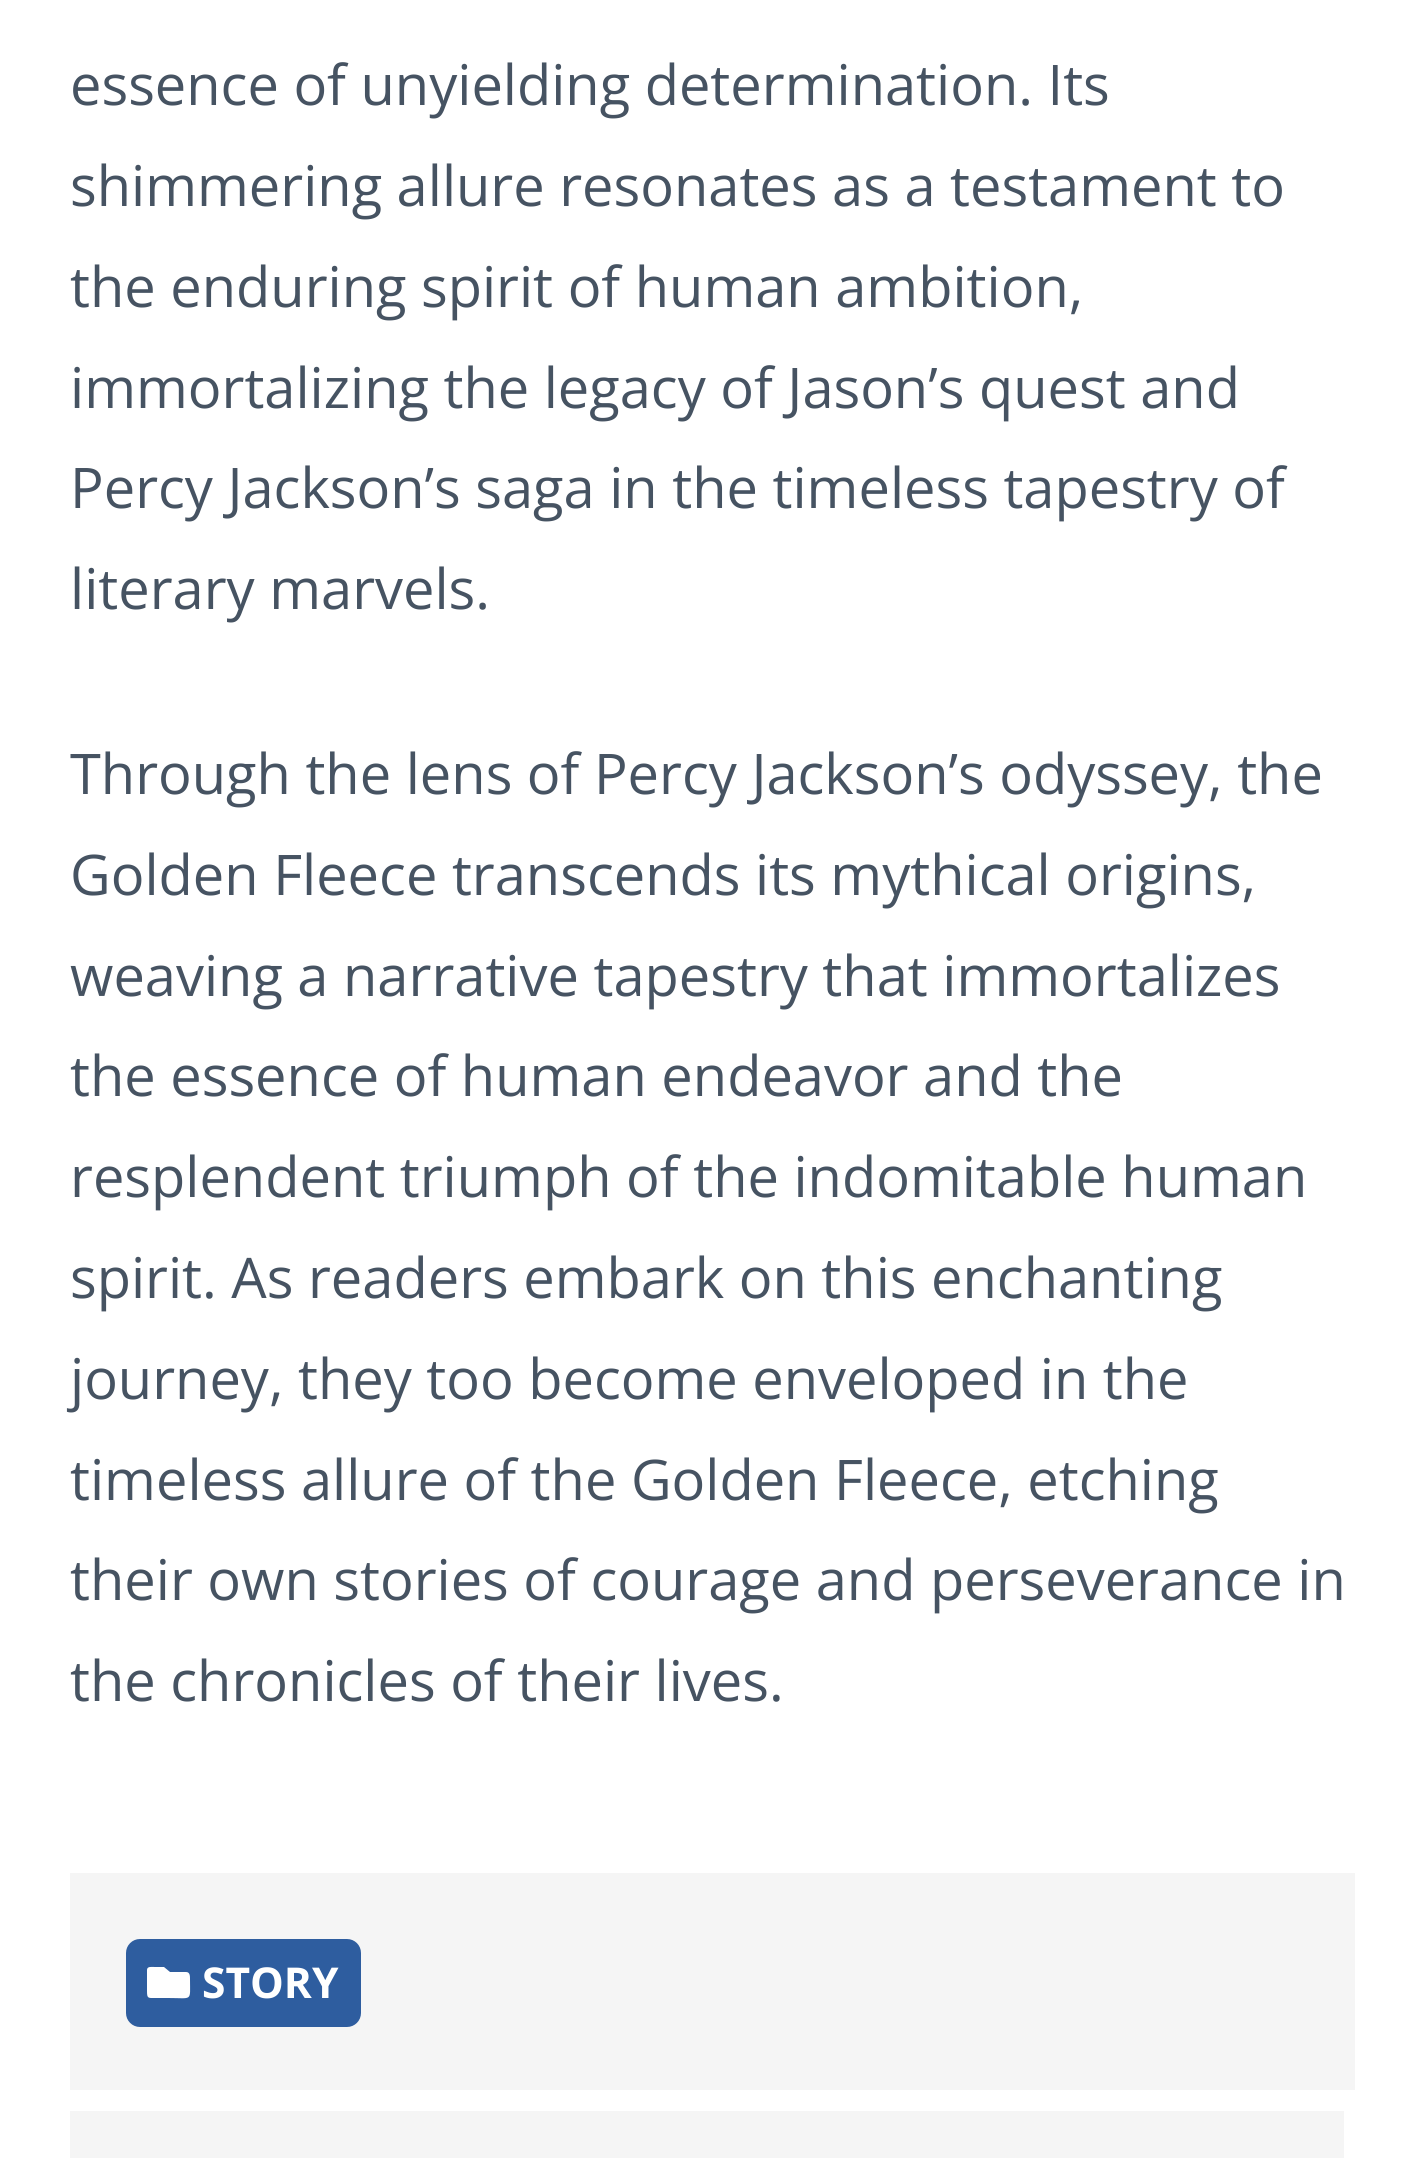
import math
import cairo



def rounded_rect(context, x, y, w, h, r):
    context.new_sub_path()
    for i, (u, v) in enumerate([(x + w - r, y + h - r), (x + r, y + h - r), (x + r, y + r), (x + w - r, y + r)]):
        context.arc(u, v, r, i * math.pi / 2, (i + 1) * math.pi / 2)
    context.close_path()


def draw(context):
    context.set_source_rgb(1, 1, 1)
    context.paint()
    context.set_source_rgb(245 / 255, 245 / 255, 245 / 255)
    context.rectangle(70, 1873, 1285, 217)
    context.fill()
    context.set_source_rgb(46 / 255, 93 / 255, 159 / 255)
    rounded_rect(context, 126, 1939, 235, 88, 14)
    context.fill()
    context.set_source_rgb(1, 1, 1)
    context.new_path()
    context.move_to(186, 1972)
    context.curve_to(190, 1972, 190, 1976, 190, 1979)
    context.curve_to(190, 2002, 193, 1998, 168, 1998)
    context.line_to(157, 1998)
    context.curve_to(148, 1998, 147, 1999, 147, 1991)
    context.line_to(147, 1970)
    context.curve_to(147, 1966, 152, 1967, 155, 1967)
    context.line_to(164, 1967)
    context.line_to(170, 1972)
    context.close_path()
    context.fill()
    context.set_source_rgb(245 / 255, 245 / 255, 245 / 255)
    context.rectangle(70, 2111, 1274, 47)
    context.fill()
    context.select_font_face("Open Sans")
    context.set_font_size(56)
    context.set_source_rgb(70 / 255, 83 / 255, 98 / 255)
    context.move_to(70, 105)
    context.show_text("essence of unyielding determination. Its")
    context.move_to(70, 206)
    context.show_text("shimmering allure resonates as a testament to")
    context.move_to(70, 307)
    context.show_text("the enduring spirit of human ambition,")
    context.move_to(70, 408)
    context.show_text("immortalizing the legacy of Jason’s quest and")
    context.move_to(70, 508)
    context.show_text("Percy Jackson’s saga in the timeless tapestry of")
    context.move_to(70, 609)
    context.show_text("literary marvels.")
    context.move_to(70, 794)
    context.show_text("Through the lens of Percy Jackson’s odyssey, the")
    context.move_to(70, 895)
    context.show_text("Golden Fleece transcends its mythical origins,")
    context.move_to(70, 996)
    context.show_text("weaving a narrative tapestry that immortalizes")
    context.move_to(70, 1096)
    context.show_text("the essence of human endeavor and the")
    context.move_to(70, 1197)
    context.show_text("resplendent triumph of the indomitable human")
    context.move_to(70, 1298)
    context.show_text("spirit. As readers embark on this enchanting")
    context.move_to(70, 1399)
    context.show_text("journey, they too become enveloped in the")
    context.move_to(70, 1500)
    context.show_text("timeless allure of the Golden Fleece, etching")
    context.move_to(70, 1600)
    context.show_text("their own stories of courage and perseverance in")
    context.move_to(70, 1701)
    context.show_text("the chronicles of their lives.")
    context.select_font_face("Open Sans", cairo.FontSlant.NORMAL, cairo.FontWeight.BOLD)
    context.set_font_size(42.5)
    context.set_source_rgb(1, 1, 1)
    context.move_to(202, 1998)
    context.show_text("STORY")


surface = cairo.ImageSurface(cairo.Format.RGB24, 1422, 2158)
context = cairo.Context(surface)
options = cairo.FontOptions()
options.set_hint_metrics(cairo.HintMetrics.OFF)
options.set_hint_style(cairo.HintStyle.NONE)
context.set_font_options(options)
context.set_miter_limit(4)
draw(context)
surface.write_to_png("out.png")
